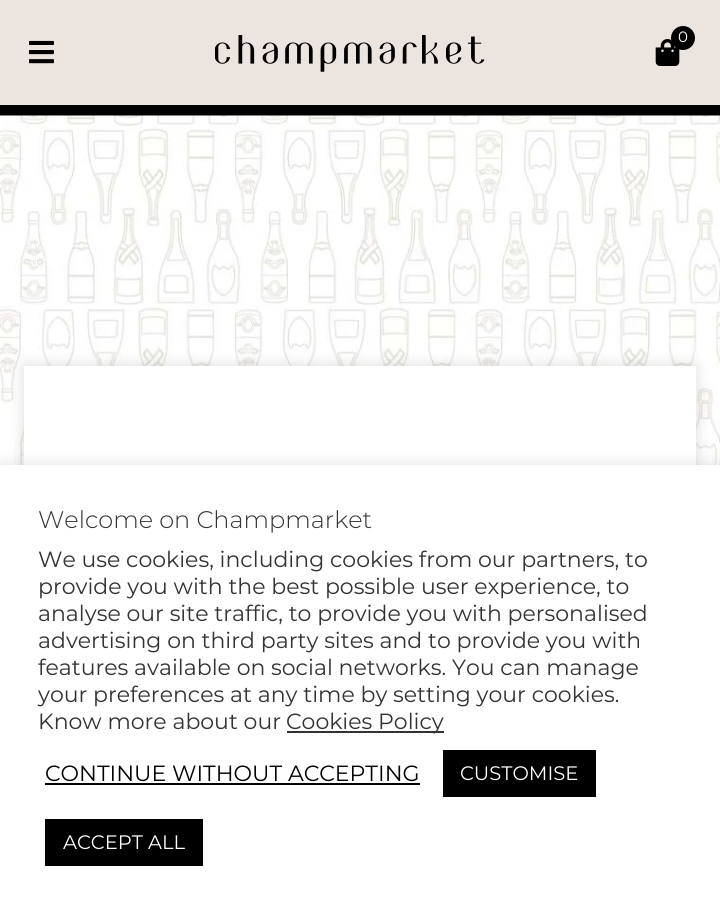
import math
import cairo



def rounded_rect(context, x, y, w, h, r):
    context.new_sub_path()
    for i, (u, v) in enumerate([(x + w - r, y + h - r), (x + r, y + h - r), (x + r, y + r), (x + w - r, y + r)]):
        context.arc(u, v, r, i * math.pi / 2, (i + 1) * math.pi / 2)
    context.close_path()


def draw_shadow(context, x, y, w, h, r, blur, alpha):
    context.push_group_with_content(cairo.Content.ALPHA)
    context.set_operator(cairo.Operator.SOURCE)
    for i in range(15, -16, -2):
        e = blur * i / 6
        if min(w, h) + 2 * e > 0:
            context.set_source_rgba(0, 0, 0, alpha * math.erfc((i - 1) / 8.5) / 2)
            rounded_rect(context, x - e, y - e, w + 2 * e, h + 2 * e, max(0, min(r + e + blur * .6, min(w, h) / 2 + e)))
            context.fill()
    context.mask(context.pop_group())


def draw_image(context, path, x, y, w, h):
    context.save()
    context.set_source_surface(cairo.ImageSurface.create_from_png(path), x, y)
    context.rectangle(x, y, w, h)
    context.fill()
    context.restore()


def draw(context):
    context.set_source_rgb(236 / 255, 229 / 255, 223 / 255)
    context.paint()
    context.set_source_rgb(0, 0, 0)
    context.rectangle(0, 105, 720, 11)
    context.fill()
    draw_image(context, "images/1.png", 29, 40, 25, 24)
    draw_image(context, "images/2.png", 215, 35, 270, 37)
    draw_image(context, "images/3.png", 655, 39, 25, 27)
    context.arc(683, 38, 12, 0, 2 * math.pi)
    context.fill()
    draw_image(context, "images/4.png", 0, 115, 720, 350)
    context.set_source_rgb(0, 0, 0)
    draw_shadow(context, 24, 366, 672, 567, 0, 7.5, 0.14)
    context.set_source_rgb(1, 1, 1)
    context.rectangle(24, 366, 672, 99)
    context.fill()
    context.set_source_rgb(172 / 255, 171 / 255, 171 / 255)
    draw_shadow(context, 0, 464, 720, 445, 0, 7.5, 0.3)
    context.set_source_rgb(1, 1, 1)
    context.rectangle(0, 465, 720, 445)
    context.fill()
    context.set_source_rgb(51 / 255, 51 / 255, 51 / 255)
    context.rectangle(287, 731, 157, 2)
    context.fill()
    context.set_source_rgb(0, 0, 0)
    context.rectangle(45, 783, 375, 2)
    context.fill()
    context.rectangle(443, 750, 153, 47)
    context.fill()
    context.rectangle(45, 819, 158, 47)
    context.fill()
    context.select_font_face("Montserrat Thin")
    context.set_font_size(15)
    context.set_source_rgb(1, 1, 1)
    context.move_to(678, 42)
    context.show_text("0")
    context.select_font_face("Montserrat Light")
    context.set_font_size(24)
    context.set_source_rgb(51 / 255, 51 / 255, 51 / 255)
    context.move_to(38, 528)
    context.show_text("Welcome on Champmarket")
    context.select_font_face("Montserrat Thin")
    context.set_font_size(22)
    context.move_to(38, 567)
    context.show_text("We use cookies, including cookies from our partners, to")
    context.move_to(38, 594)
    context.show_text("provide you with the best possible user experience, to")
    context.move_to(38, 621)
    context.show_text("analyse our site traffic, to provide you with personalised")
    context.move_to(38, 648)
    context.show_text("advertising on third party sites and to provide you with")
    context.move_to(38, 675)
    context.show_text("features available on social networks. You can manage")
    context.move_to(38, 702)
    context.show_text("your preferences at any time by setting your cookies.")
    context.move_to(38, 729)
    context.show_text("Know more about our")
    context.move_to(286, 729)
    context.show_text("Cookies Policy")
    context.set_source_rgb(0, 0, 0)
    context.move_to(45, 781)
    context.show_text("CONTINUE WITHOUT ACCEPTING")
    context.set_font_size(19.5)
    context.set_source_rgb(1, 1, 1)
    context.move_to(460, 780)
    context.show_text("CUSTOMISE")
    context.move_to(63, 849)
    context.show_text("ACCEPT ALL")


surface = cairo.ImageSurface(cairo.Format.RGB24, 720, 910)
context = cairo.Context(surface)
options = cairo.FontOptions()
options.set_hint_metrics(cairo.HintMetrics.OFF)
options.set_hint_style(cairo.HintStyle.NONE)
context.set_font_options(options)
context.set_miter_limit(4)
draw(context)
surface.write_to_png("out.png")
